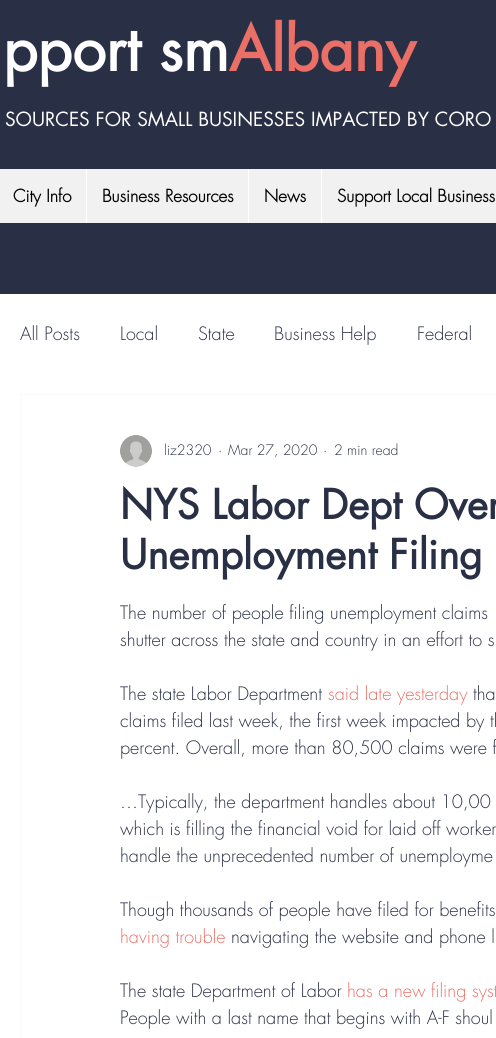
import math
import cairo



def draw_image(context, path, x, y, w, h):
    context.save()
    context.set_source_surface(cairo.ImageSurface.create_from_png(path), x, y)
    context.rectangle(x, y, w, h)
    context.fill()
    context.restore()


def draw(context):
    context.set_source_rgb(41 / 255, 47 / 255, 69 / 255)
    context.paint()
    context.set_source_rgb(241 / 255, 241 / 255, 241 / 255)
    context.rectangle(0, 169, 496, 54)
    context.fill()
    context.set_source_rgb(1, 1, 1)
    context.rectangle(86, 169, 1, 54)
    context.fill()
    context.rectangle(248, 169, 1, 54)
    context.fill()
    context.rectangle(321, 169, 1, 54)
    context.fill()
    context.rectangle(0, 294, 496, 744)
    context.fill()
    context.rectangle(20.5, 394.5, 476, 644)
    context.set_source_rgb(249 / 255, 249 / 255, 249 / 255)
    context.set_line_width(1)
    context.stroke()
    draw_image(context, "images/1.png", 120, 435, 32, 32)
    context.select_font_face("futura", cairo.FontSlant.NORMAL, cairo.FontWeight.BOLD)
    context.set_font_size(60)
    context.set_source_rgb(1, 1, 1)
    context.move_to(3, 71)
    context.show_text("pport sm")
    context.set_source_rgb(234 / 255, 111 / 255, 102 / 255)
    context.move_to(229, 71)
    context.show_text("Albany")
    context.select_font_face("futura")
    context.set_font_size(19)
    context.set_source_rgb(1, 1, 1)
    context.move_to(5, 126)
    context.show_text("SOURCES FOR SMALL BUSINESSES IMPACTED BY CORO")
    context.select_font_face("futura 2", cairo.FontSlant.NORMAL, cairo.FontWeight.BOLD)
    context.set_font_size(17)
    context.set_source_rgb(0, 0, 0)
    context.move_to(13, 202)
    context.show_text("City Info")
    context.move_to(102, 202)
    context.show_text("Business Resources")
    context.move_to(264, 202)
    context.show_text("News")
    context.move_to(337, 202)
    context.show_text("Support Local Business")
    context.select_font_face("futura Light")
    context.set_font_size(18)
    context.set_source_rgb(41 / 255, 47 / 255, 69 / 255)
    context.move_to(20, 340)
    context.show_text("All Posts")
    context.move_to(120, 340)
    context.show_text("Local")
    context.move_to(198, 340)
    context.show_text("State")
    context.move_to(274, 340)
    context.show_text("Business Help")
    context.move_to(417, 340)
    context.show_text("Federal")
    context.set_font_size(14)
    context.move_to(164, 455)
    context.show_text("liz2320")
    context.move_to(218, 455)
    context.show_text("·")
    context.move_to(228, 455)
    context.show_text("Mar 27, 2020")
    context.move_to(323, 455)
    context.show_text("·")
    context.move_to(334, 455)
    context.show_text("2 min read")
    context.select_font_face("futura", cairo.FontSlant.NORMAL, cairo.FontWeight.BOLD)
    context.set_font_size(40)
    context.move_to(120, 519)
    context.show_text("NYS Labor Dept Over")
    context.move_to(120, 569)
    context.show_text("Unemployment Filing")
    context.select_font_face("futura Light")
    context.set_font_size(18)
    context.move_to(120, 619)
    context.show_text("The number of people filing unemployment claims")
    context.move_to(120, 646)
    context.show_text("shutter across the state and country in an effort to s")
    context.move_to(120, 700)
    context.show_text("The state Labor Department")
    context.set_source_rgb(234 / 255, 111 / 255, 102 / 255)
    context.move_to(328, 700)
    context.show_text("said late yesterday")
    context.set_source_rgb(41 / 255, 47 / 255, 69 / 255)
    context.move_to(473, 700)
    context.show_text("tha")
    context.move_to(120, 727)
    context.show_text("claims filed last week, the first week impacted by th")
    context.move_to(120, 754)
    context.show_text("percent. Overall, more than 80,500 claims were f")
    context.move_to(120, 808)
    context.show_text("…Typically, the department handles about 10,00")
    context.move_to(120, 835)
    context.show_text("which is filling the financial void for laid off worker")
    context.move_to(120, 862)
    context.show_text("handle the unprecedented number of unemployme")
    context.move_to(120, 916)
    context.show_text("Though thousands of people have filed for benefits")
    context.set_source_rgb(234 / 255, 111 / 255, 102 / 255)
    context.move_to(120, 943)
    context.show_text("having trouble")
    context.set_source_rgb(41 / 255, 47 / 255, 69 / 255)
    context.move_to(231, 943)
    context.show_text("navigating the website and phone l")
    context.move_to(120, 997)
    context.show_text("The state Department of Labor")
    context.set_source_rgb(234 / 255, 111 / 255, 102 / 255)
    context.move_to(347, 997)
    context.show_text("has a new filing syst")
    context.set_source_rgb(41 / 255, 47 / 255, 69 / 255)
    context.move_to(120, 1024)
    context.show_text("People with a last name that begins with A-F shoul")


surface = cairo.ImageSurface(cairo.Format.RGB24, 496, 1038)
context = cairo.Context(surface)
options = cairo.FontOptions()
options.set_hint_metrics(cairo.HintMetrics.OFF)
options.set_hint_style(cairo.HintStyle.NONE)
context.set_font_options(options)
context.set_miter_limit(4)
draw(context)
surface.write_to_png("out.png")
